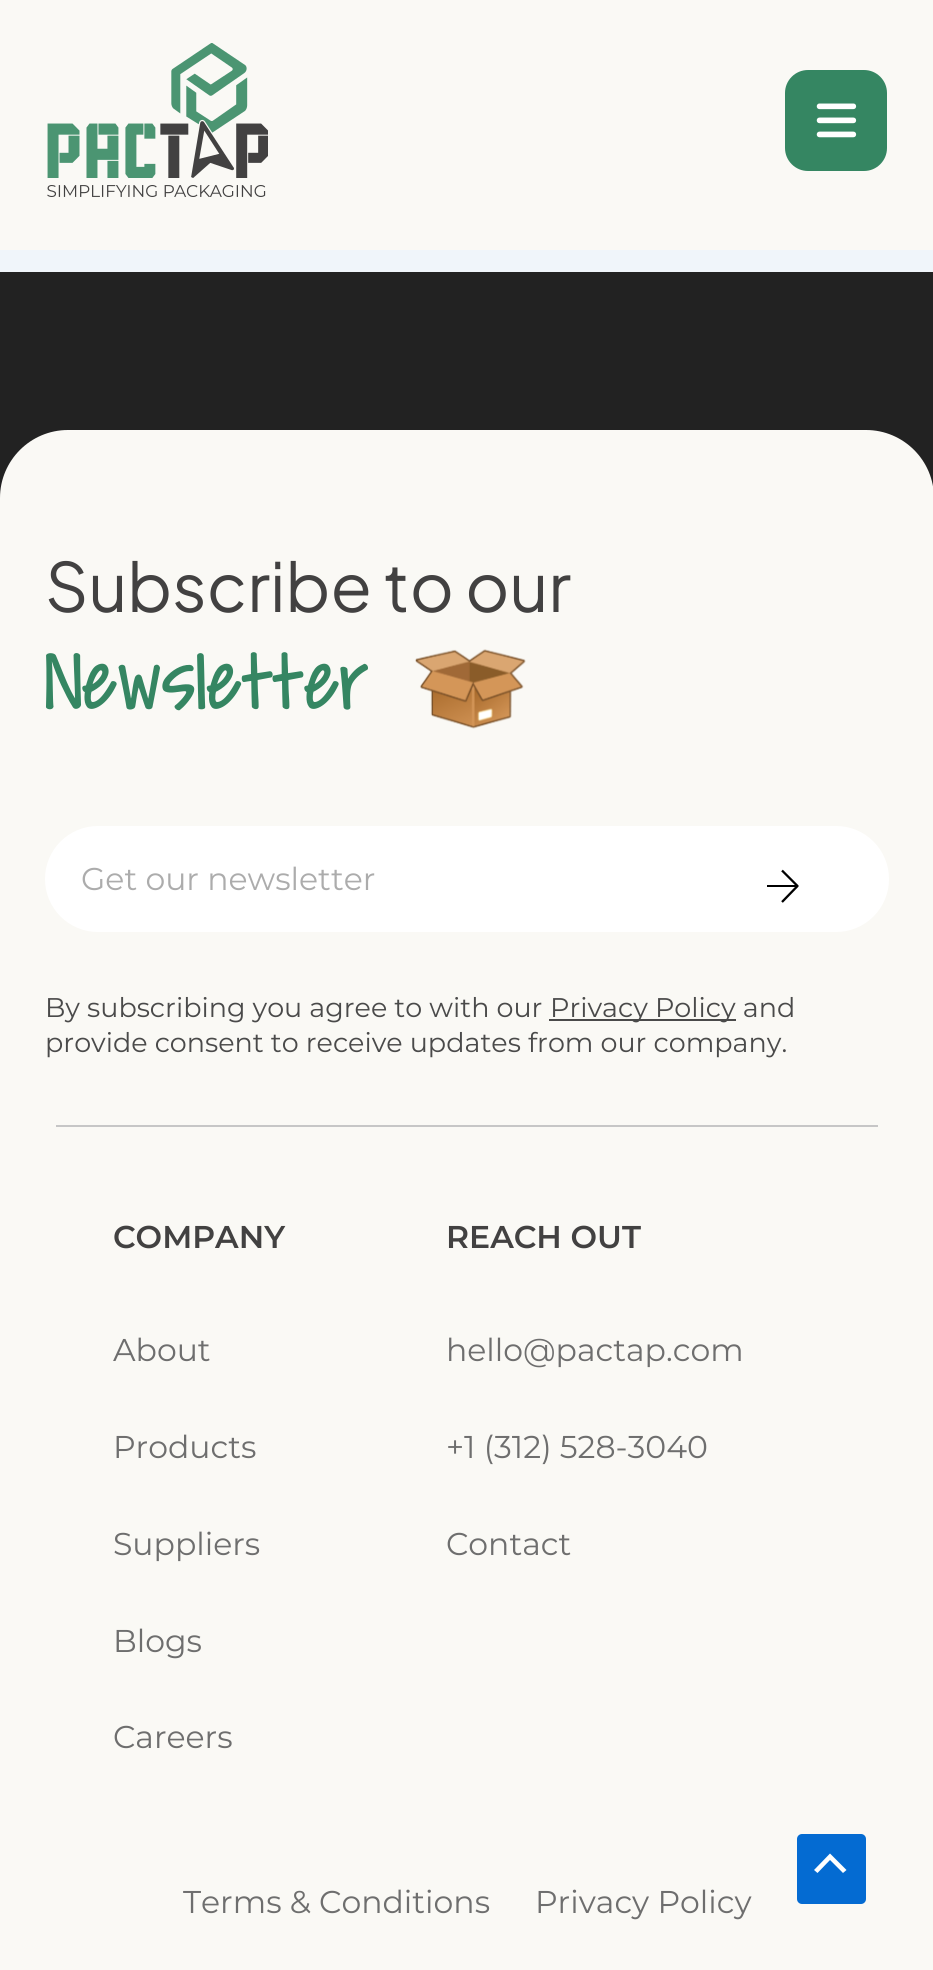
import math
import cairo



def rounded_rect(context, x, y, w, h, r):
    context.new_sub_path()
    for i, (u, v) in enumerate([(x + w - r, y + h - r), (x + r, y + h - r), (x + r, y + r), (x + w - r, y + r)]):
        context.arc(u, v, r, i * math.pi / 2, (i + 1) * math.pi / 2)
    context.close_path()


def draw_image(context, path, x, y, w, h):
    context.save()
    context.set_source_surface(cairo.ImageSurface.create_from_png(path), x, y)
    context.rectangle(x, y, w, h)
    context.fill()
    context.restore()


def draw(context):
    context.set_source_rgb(240 / 255, 245 / 255, 250 / 255)
    context.paint()
    context.set_source_rgb(250 / 255, 249 / 255, 245 / 255)
    context.rectangle(0, 0, 933, 250)
    context.fill()
    draw_image(context, "images/1.png", 47, 43, 221, 154)
    context.set_source_rgb(53 / 255, 134 / 255, 98 / 255)
    rounded_rect(context, 785, 70, 102, 101, 23)
    context.fill()
    draw_image(context, "images/2.png", 816, 103, 41, 35)
    context.set_source_rgb(34 / 255, 34 / 255, 34 / 255)
    context.rectangle(0, 272, 933, 226)
    context.fill()
    context.set_source_rgb(250 / 255, 249 / 255, 245 / 255)
    context.new_path()
    context.move_to(68, 430)
    context.line_to(866, 430)
    context.curve_to(903.5, 430, 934, 460.5, 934, 498)
    context.line_to(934, 758)
    context.line_to(0, 758)
    context.line_to(0, 498)
    context.curve_to(0, 460.5, 30.5, 430, 68, 430)
    context.close_path()
    context.fill()
    draw_image(context, "images/3.png", 415, 649, 111, 80)
    context.rectangle(0, 758, 933, 1212)
    context.fill()
    context.set_source_rgb(1, 1, 1)
    rounded_rect(context, 45, 826, 844, 106, 53)
    context.fill()
    context.set_source_rgb(0, 0, 0)
    context.rectangle(767, 885, 31, 2)
    context.fill()
    context.new_path()
    context.move_to(782, 870.5)
    context.line_to(797.5, 886)
    context.line_to(782, 902)
    context.set_line_width(2.3)
    context.set_line_join(cairo.LineJoin.ROUND)
    context.stroke()
    context.set_source_rgb(74 / 255, 74 / 255, 74 / 255)
    context.rectangle(549, 1019, 187, 2)
    context.fill()
    context.set_source_rgb(198 / 255, 198 / 255, 198 / 255)
    context.rectangle(56, 1125, 822, 2)
    context.fill()
    context.set_source_rgb(4 / 255, 107 / 255, 210 / 255)
    rounded_rect(context, 797, 1834, 69, 70, 5)
    context.fill()
    context.set_source_rgb(1, 1, 1)
    context.new_path()
    context.move_to(846.5, 1870)
    context.line_to(830, 1853.5)
    context.line_to(814, 1870)
    context.line_to(817.5, 1873)
    context.line_to(830, 1860)
    context.line_to(843, 1873)
    context.close_path()
    context.fill()
    context.select_font_face("Plus Jakarta Sans")
    context.set_font_size(67.5)
    context.set_source_rgb(66 / 255, 65 / 255, 65 / 255)
    context.move_to(45, 612)
    context.show_text("Subscribe to our")
    context.select_font_face("Covered By Your Grace")
    context.set_font_size(90)
    context.set_source_rgb(53 / 255, 134 / 255, 98 / 255)
    context.move_to(45, 709)
    context.show_text("Newsletter")
    context.select_font_face("Montserrat")
    context.set_font_size(31.5)
    context.set_source_rgb(172 / 255, 172 / 255, 172 / 255)
    context.move_to(81, 890)
    context.show_text("Get our newsletter")
    context.set_font_size(27)
    context.set_source_rgb(74 / 255, 74 / 255, 74 / 255)
    context.move_to(45, 1017)
    context.show_text("By subscribing you agree to with our")
    context.move_to(550, 1017)
    context.show_text("Privacy Policy and")
    context.move_to(45, 1052)
    context.show_text("provide consent to receive updates from our company.")
    context.select_font_face("Montserrat SemiBold")
    context.set_font_size(31.5)
    context.set_source_rgb(66 / 255, 65 / 255, 65 / 255)
    context.move_to(113, 1248)
    context.show_text("COMPANY")
    context.select_font_face("Montserrat")
    context.set_source_rgb(110 / 255, 110 / 255, 110 / 255)
    context.move_to(113, 1361)
    context.show_text("About")
    context.move_to(113, 1458)
    context.show_text("Products")
    context.move_to(113, 1555)
    context.show_text("Suppliers")
    context.move_to(113, 1652)
    context.show_text("Blogs")
    context.move_to(113, 1748)
    context.show_text("Careers")
    context.select_font_face("Montserrat SemiBold")
    context.set_source_rgb(66 / 255, 65 / 255, 65 / 255)
    context.move_to(446, 1248)
    context.show_text("REACH OUT")
    context.select_font_face("Montserrat")
    context.set_source_rgb(110 / 255, 110 / 255, 110 / 255)
    context.move_to(446, 1361)
    context.show_text("hello@pactap.com")
    context.move_to(446, 1458)
    context.show_text("+1 (312) 528-3040")
    context.move_to(446, 1555)
    context.show_text("Contact")
    context.move_to(183, 1913)
    context.show_text("Terms & Conditions")
    context.move_to(535, 1913)
    context.show_text("Privacy Policy")


surface = cairo.ImageSurface(cairo.Format.RGB24, 933, 1970)
context = cairo.Context(surface)
options = cairo.FontOptions()
options.set_hint_metrics(cairo.HintMetrics.OFF)
options.set_hint_style(cairo.HintStyle.NONE)
context.set_font_options(options)
context.set_miter_limit(4)
draw(context)
surface.write_to_png("out.png")
